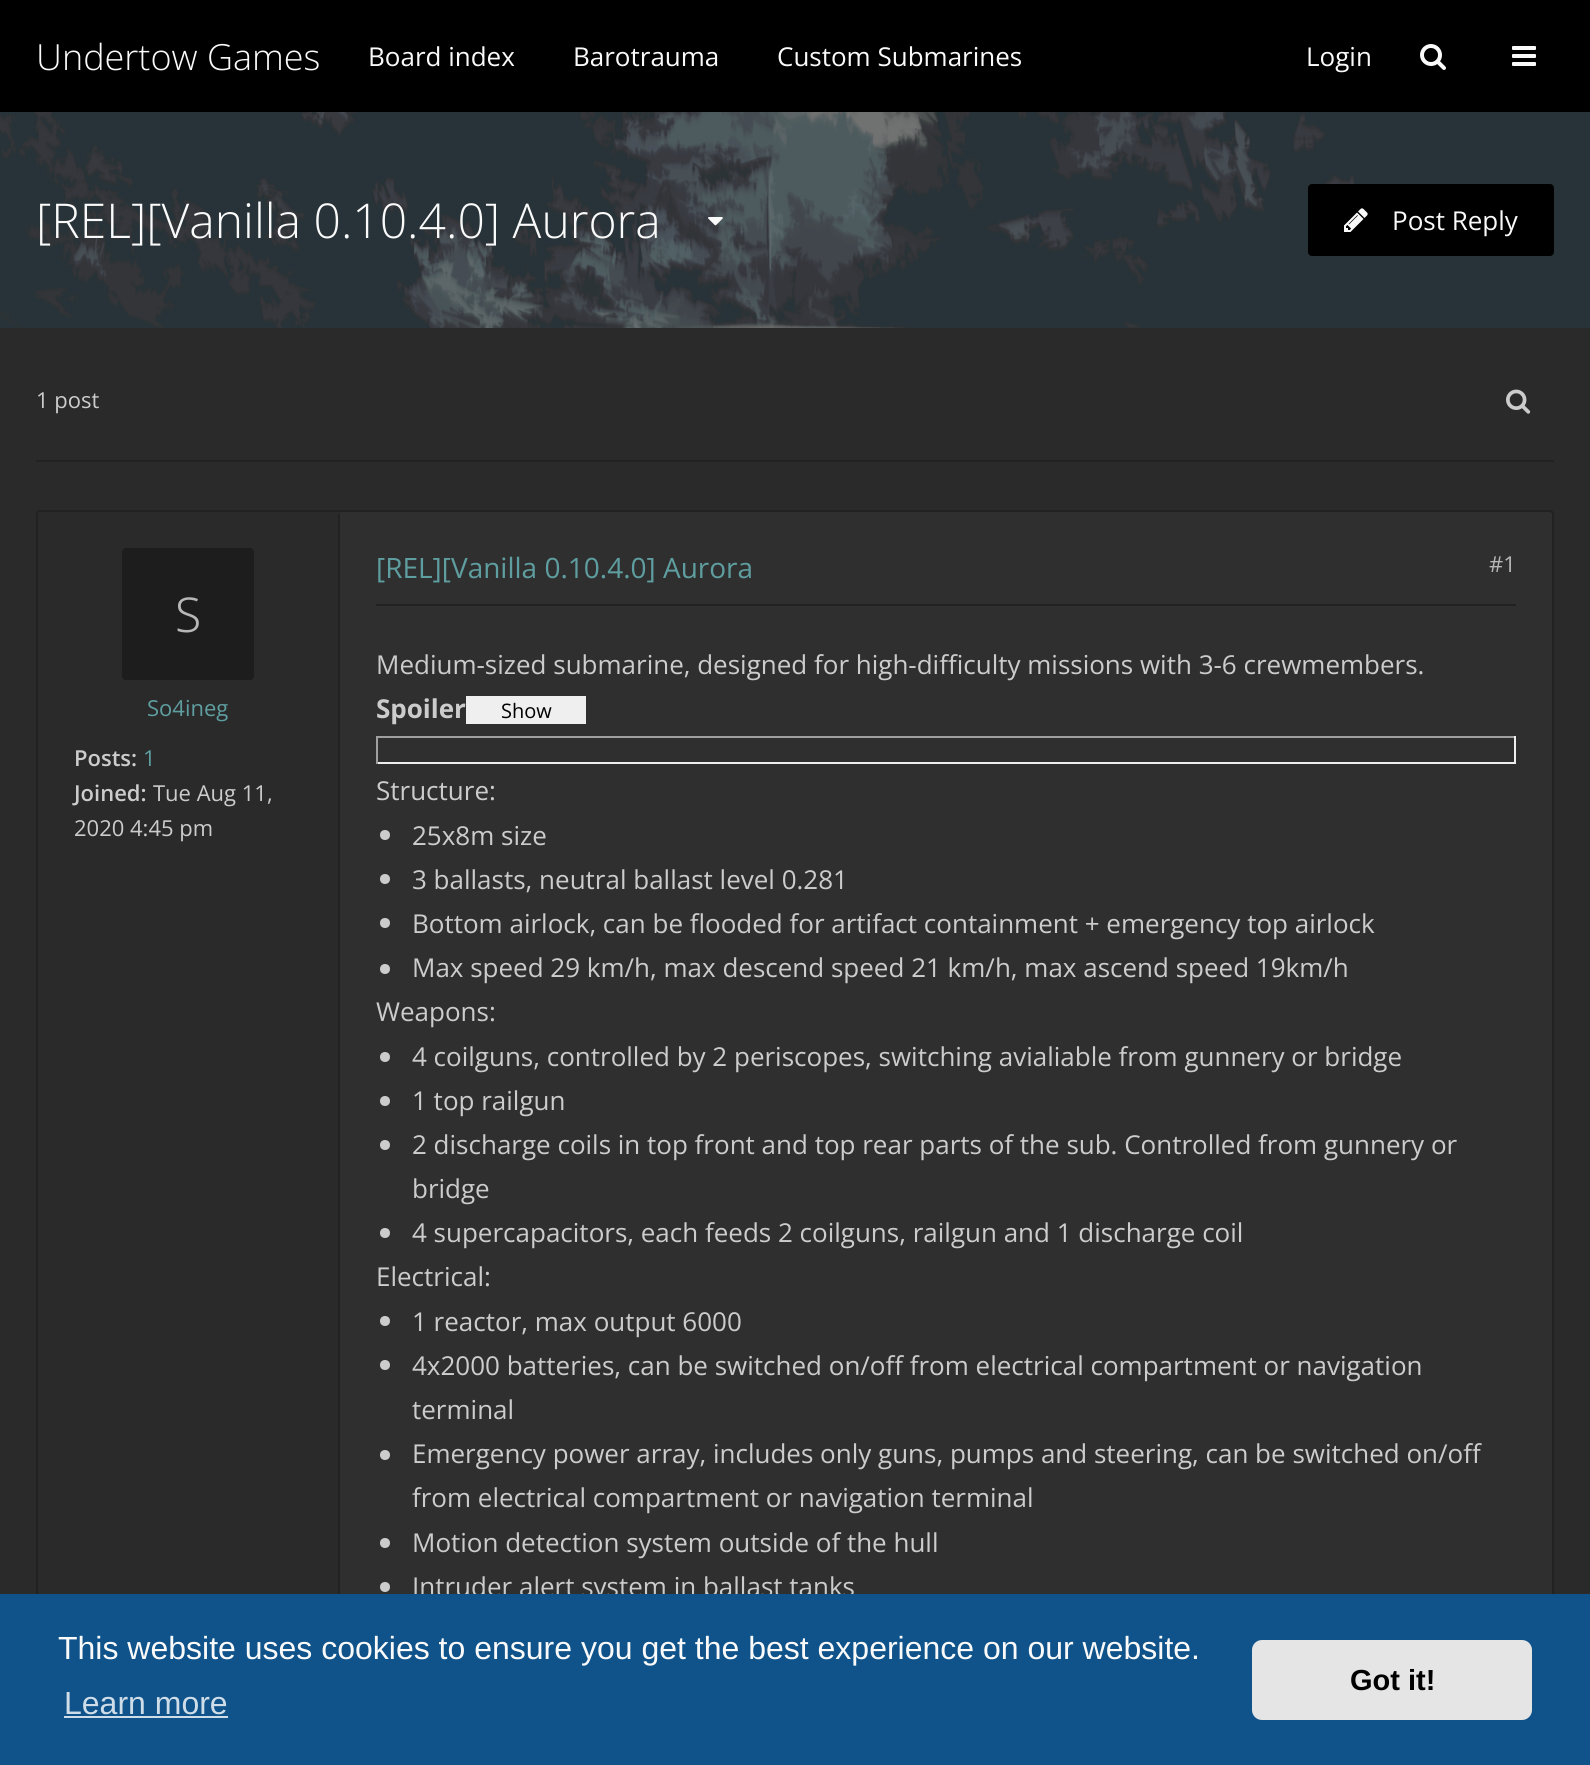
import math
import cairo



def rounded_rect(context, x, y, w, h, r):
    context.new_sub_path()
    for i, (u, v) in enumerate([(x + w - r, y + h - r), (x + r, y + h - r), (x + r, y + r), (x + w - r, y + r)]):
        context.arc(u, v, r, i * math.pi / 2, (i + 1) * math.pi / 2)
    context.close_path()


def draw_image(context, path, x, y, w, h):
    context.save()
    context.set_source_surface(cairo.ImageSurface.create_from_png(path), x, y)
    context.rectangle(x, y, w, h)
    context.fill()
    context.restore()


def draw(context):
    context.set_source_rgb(42 / 255, 42 / 255, 42 / 255)
    context.paint()
    context.set_source_rgb(0, 0, 0)
    context.rectangle(0, 0, 1590, 112)
    context.fill()
    draw_image(context, "images/1.png", 1420, 44, 26, 26)
    draw_image(context, "images/2.png", 1512, 46, 24, 20)
    draw_image(context, "images/3.png", 0, 112, 1590, 216)
    draw_image(context, "images/4.png", 708, 217, 15, 9)
    rounded_rect(context, 1308, 184, 246, 72, 4)
    context.fill()
    draw_image(context, "images/5.png", 1344, 208, 24, 24)
    context.set_source_rgb(34 / 255, 34 / 255, 34 / 255)
    context.rectangle(36, 460, 1518, 2)
    context.fill()
    draw_image(context, "images/6.png", 1506, 389, 25, 25)
    rounded_rect(context, 37, 511, 1516, 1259, 3)
    context.stroke()
    context.set_source_rgb(29 / 255, 29 / 255, 29 / 255)
    rounded_rect(context, 122, 548, 132, 132, 4)
    context.fill()
    context.set_source_rgb(47 / 255, 47 / 255, 47 / 255)
    context.new_path()
    context.move_to(342, 512)
    context.line_to(1548, 512)
    context.curve_to(1550, 512, 1552, 514, 1552, 516)
    context.line_to(1552, 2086)
    context.curve_to(1552, 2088, 1550, 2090, 1548, 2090)
    context.line_to(342, 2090)
    context.curve_to(341, 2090, 340, 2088, 340, 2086)
    context.line_to(340, 516)
    context.curve_to(340, 514, 341, 512, 342, 512)
    context.close_path()
    context.fill()
    context.set_source_rgb(34 / 255, 34 / 255, 34 / 255)
    context.rectangle(338, 514, 2, 1080)
    context.fill()
    context.rectangle(376, 604, 1140, 2)
    context.fill()
    context.set_source_rgb(239 / 255, 239 / 255, 239 / 255)
    context.rectangle(466, 696, 120, 28)
    context.fill()
    context.set_source_rgb(159 / 255, 159 / 255, 159 / 255)
    context.rectangle(376, 736, 1140, 2)
    context.fill()
    context.set_source_rgb(238 / 255, 238 / 255, 238 / 255)
    context.rectangle(1514, 736, 2, 28)
    context.fill()
    context.rectangle(376, 762, 1140, 2)
    context.fill()
    context.set_source_rgb(159 / 255, 159 / 255, 159 / 255)
    context.rectangle(376, 736, 2, 28)
    context.fill()
    context.set_source_rgb(204 / 255, 204 / 255, 204 / 255)
    context.arc(385, 835, 5, 0, 2 * math.pi)
    context.fill()
    context.arc(385, 879, 5, 0, 2 * math.pi)
    context.fill()
    context.arc(385, 923, 5, 0, 2 * math.pi)
    context.fill()
    context.arc(385, 969, 5, 0, 2 * math.pi)
    context.fill()
    context.arc(385, 1057, 5, 0, 2 * math.pi)
    context.fill()
    context.arc(385, 1101, 5, 0, 2 * math.pi)
    context.fill()
    context.arc(385, 1145, 5, 0, 2 * math.pi)
    context.fill()
    context.arc(385, 1233, 5, 0, 2 * math.pi)
    context.fill()
    context.arc(385, 1321, 5, 0, 2 * math.pi)
    context.fill()
    context.arc(385, 1365, 5, 0, 2 * math.pi)
    context.fill()
    context.arc(385, 1455, 5, 0, 2 * math.pi)
    context.fill()
    context.arc(385, 1543, 5, 0, 2 * math.pi)
    context.fill()
    context.arc(385, 1587, 5, 0, 2 * math.pi)
    context.fill()
    context.select_font_face("Open Sans Light")
    context.set_font_size(36)
    context.set_source_rgb(250 / 255, 250 / 255, 250 / 255)
    context.move_to(36, 70)
    context.show_text("Undertow Games")
    context.select_font_face("Open Sans")
    context.set_font_size(26)
    context.move_to(368, 66)
    context.show_text("Board index")
    context.move_to(573, 66)
    context.show_text("Barotrauma")
    context.move_to(777, 66)
    context.show_text("Custom Submarines")
    context.move_to(1306, 66)
    context.show_text("Login")
    context.select_font_face("Open Sans Light")
    context.set_font_size(48)
    context.move_to(36, 238)
    context.show_text("[REL][Vanilla 0.10.4.0] Aurora")
    context.select_font_face("Open Sans")
    context.set_font_size(26)
    context.move_to(1392, 230)
    context.show_text("Post Reply")
    context.set_font_size(22)
    context.set_source_rgb(204 / 255, 204 / 255, 204 / 255)
    context.move_to(36, 408)
    context.show_text("1 post")
    context.select_font_face("Noto Sans Light")
    context.set_font_size(48)
    context.set_source_rgb(183 / 255, 183 / 255, 183 / 255)
    context.move_to(175, 632)
    context.show_text("S")
    context.select_font_face("Open Sans")
    context.set_font_size(22)
    context.set_source_rgb(95 / 255, 158 / 255, 160 / 255)
    context.move_to(147, 716)
    context.show_text("So4ineg")
    context.select_font_face("Open Sans SemiBold")
    context.set_source_rgb(204 / 255, 204 / 255, 204 / 255)
    context.move_to(74, 766)
    context.show_text("Posts:")
    context.select_font_face("Open Sans")
    context.set_source_rgb(95 / 255, 158 / 255, 160 / 255)
    context.move_to(143, 766)
    context.show_text("1")
    context.select_font_face("Open Sans SemiBold")
    context.set_source_rgb(204 / 255, 204 / 255, 204 / 255)
    context.move_to(74, 801)
    context.show_text("Joined:")
    context.select_font_face("Open Sans")
    context.move_to(153, 801)
    context.show_text("Tue Aug 11,")
    context.move_to(74, 836)
    context.show_text("2020 4:45 pm")
    context.set_font_size(28)
    context.set_source_rgb(95 / 255, 158 / 255, 160 / 255)
    context.move_to(376, 578)
    context.show_text("[REL][Vanilla 0.10.4.0] Aurora")
    context.set_font_size(22)
    context.set_source_rgb(183 / 255, 183 / 255, 183 / 255)
    context.move_to(1489, 572)
    context.show_text("#1")
    context.set_font_size(26)
    context.set_source_rgb(204 / 255, 204 / 255, 204 / 255)
    context.move_to(376, 674)
    context.show_text("Medium-sized submarine, designed for high-difficulty missions with 3-6 crewmembers.")
    context.select_font_face("Open Sans", cairo.FontSlant.NORMAL, cairo.FontWeight.BOLD)
    context.move_to(376, 718)
    context.show_text("Spoiler")
    context.select_font_face("Open Sans")
    context.set_font_size(20)
    context.set_source_rgb(0, 0, 0)
    context.move_to(501, 718)
    context.show_text("Show")
    context.set_font_size(26)
    context.set_source_rgb(204 / 255, 204 / 255, 204 / 255)
    context.move_to(376, 800)
    context.show_text("Structure:")
    context.move_to(412, 845)
    context.show_text("25x8m size")
    context.move_to(412, 889)
    context.show_text("3 ballasts, neutral ballast level 0.281")
    context.move_to(412, 933)
    context.show_text("Bottom airlock, can be flooded for artifact containment + emergency top airlock")
    context.move_to(412, 977)
    context.show_text("Max speed 29 km/h, max descend speed 21 km/h, max ascend speed 19km/h")
    context.move_to(376, 1021)
    context.show_text("Weapons:")
    context.move_to(412, 1066)
    context.show_text("4 coilguns, controlled by 2 periscopes, switching avialiable from gunnery or bridge")
    context.move_to(412, 1110)
    context.show_text("1 top railgun")
    context.move_to(412, 1154)
    context.show_text("2 discharge coils in top front and top rear parts of the sub. Controlled from gunnery or")
    context.move_to(412, 1198)
    context.show_text("bridge")
    context.move_to(412, 1242)
    context.show_text("4 supercapacitors, each feeds 2 coilguns, railgun and 1 discharge coil")
    context.move_to(376, 1286)
    context.show_text("Electrical:")
    context.move_to(412, 1331)
    context.show_text("1 reactor, max output 6000")
    context.move_to(412, 1375)
    context.show_text("4x2000 batteries, can be switched on/off from electrical compartment or navigation")
    context.move_to(412, 1419)
    context.show_text("terminal")
    context.move_to(412, 1463)
    context.show_text("Emergency power array, includes only guns, pumps and steering, can be switched on/off")
    context.move_to(412, 1507)
    context.show_text("from electrical compartment or navigation terminal")
    context.move_to(412, 1552)
    context.show_text("Motion detection system outside of the hull")
    context.move_to(412, 1596)
    context.show_text("Intruder alert system in ballast tanks")
    context.set_source_rgb(15 / 255, 83 / 255, 138 / 255)
    context.rectangle(0, 1594, 1590, 171)
    context.fill()
    context.select_font_face("Liberation Sans")
    context.set_font_size(32)
    context.set_source_rgb(250 / 255, 250 / 255, 250 / 255)
    context.move_to(58, 1659)
    context.show_text("This website uses cookies to ensure you get the best experience on our website.")
    context.set_source_rgb(207 / 255, 221 / 255, 232 / 255)
    context.move_to(64, 1714)
    context.show_text("Learn more")
    context.rectangle(64, 1716, 164, 2)
    context.fill()
    context.set_source_rgb(229 / 255, 229 / 255, 229 / 255)
    rounded_rect(context, 1252, 1640, 280, 80, 10)
    context.fill()
    context.select_font_face("Liberation Sans", cairo.FontSlant.NORMAL, cairo.FontWeight.BOLD)
    context.set_font_size(29)
    context.set_source_rgb(0, 0, 0)
    context.move_to(1350, 1690)
    context.show_text("Got it!")


surface = cairo.ImageSurface(cairo.Format.RGB24, 1590, 1765)
context = cairo.Context(surface)
options = cairo.FontOptions()
options.set_hint_metrics(cairo.HintMetrics.OFF)
options.set_hint_style(cairo.HintStyle.NONE)
context.set_font_options(options)
context.set_miter_limit(4)
draw(context)
surface.write_to_png("out.png")
